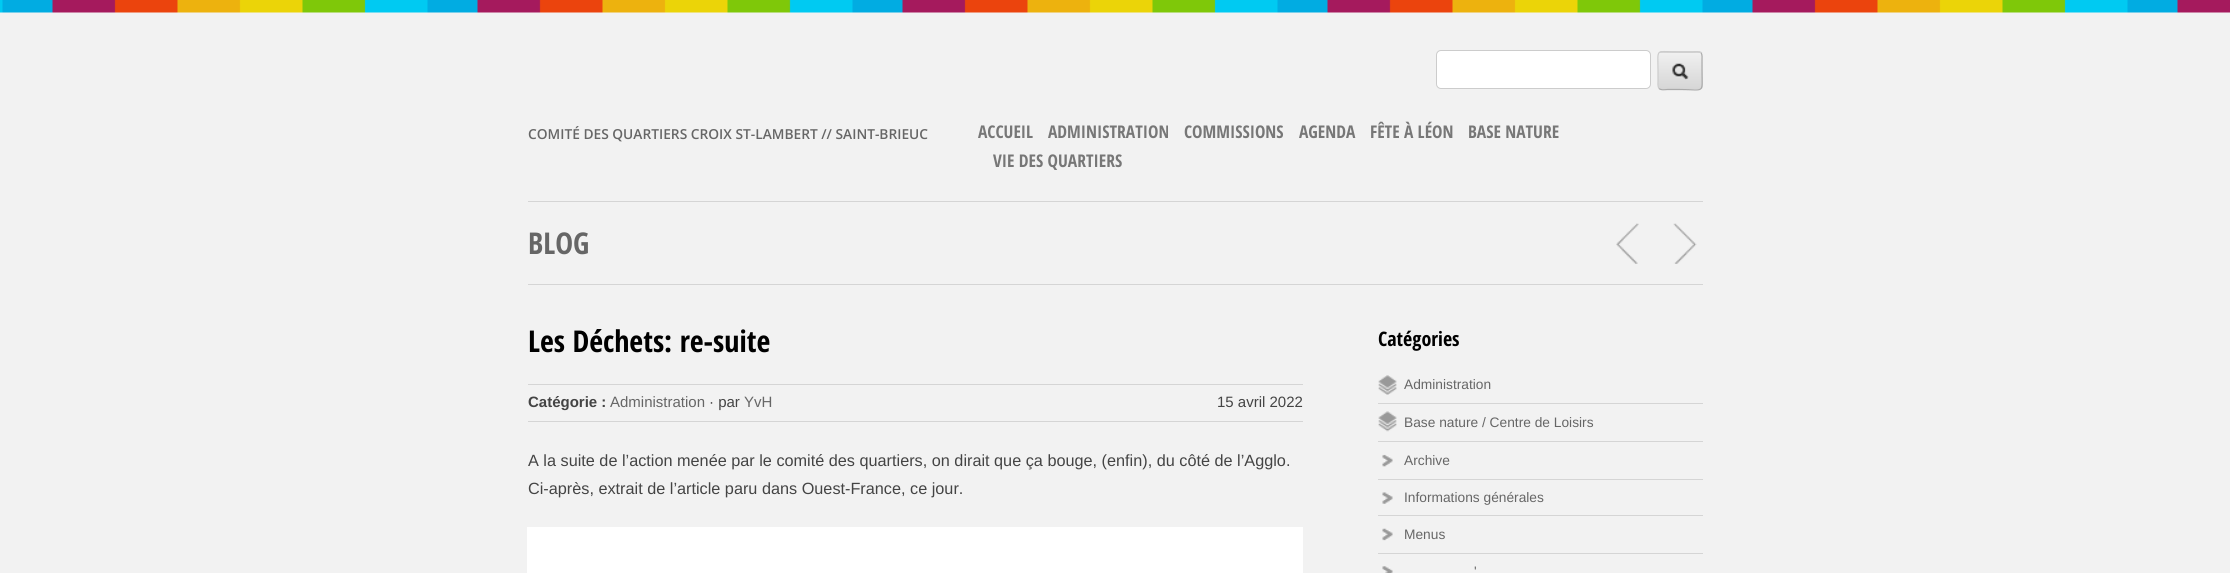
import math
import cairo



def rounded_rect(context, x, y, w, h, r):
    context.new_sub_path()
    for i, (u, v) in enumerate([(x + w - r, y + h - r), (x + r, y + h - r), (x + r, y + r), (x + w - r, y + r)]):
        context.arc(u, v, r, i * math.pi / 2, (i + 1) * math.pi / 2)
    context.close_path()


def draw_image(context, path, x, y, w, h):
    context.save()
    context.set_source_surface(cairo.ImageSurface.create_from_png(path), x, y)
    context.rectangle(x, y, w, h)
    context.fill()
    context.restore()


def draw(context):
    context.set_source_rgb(242 / 255, 242 / 255, 242 / 255)
    context.paint()
    draw_image(context, "images/1.png", 0, 0, 2230, 13)
    context.set_source_rgb(1, 1, 1)
    rounded_rect(context, 1436.5, 50.5, 214, 38, 4.5)
    context.fill_preserve()
    context.set_source_rgb(204 / 255, 204 / 255, 204 / 255)
    context.set_line_width(1)
    context.stroke()
    context.save()
    rounded_rect(context, 1658, 51, 45, 39, 4)
    context.clip()
    gradient = cairo.LinearGradient(1680, 16, 1680, 53)
    gradient.add_color_stop_rgba(0, 240 / 255, 240 / 255, 240 / 255, 1)
    gradient.add_color_stop_rgba(1, 214 / 255, 214 / 255, 214 / 255, 1)
    context.set_source(gradient)
    context.rectangle(1658, 51, 45, 2)
    context.fill()
    gradient = cairo.LinearGradient(1680, 53, 1680, 89)
    gradient.add_color_stop_rgba(0, 240 / 255, 240 / 255, 240 / 255, 1)
    gradient.add_color_stop_rgba(1, 214 / 255, 214 / 255, 214 / 255, 1)
    context.set_source(gradient)
    context.rectangle(1658, 53, 45, 36)
    context.fill()
    context.restore()
    context.new_path()
    context.move_to(1701, 53)
    context.curve_to(1702.5, 54.5, 1702, 58.5, 1702, 60)
    context.line_to(1702, 70.5)
    context.curve_to(1702, 94.5, 1705.5, 89.5, 1680, 89.5)
    context.line_to(1667.5, 89.5)
    context.curve_to(1666, 89.5, 1661, 90.5, 1659, 88.5)
    context.set_source_rgb(170 / 255, 170 / 255, 170 / 255)
    context.set_line_width(1.2)
    context.stroke()
    context.new_path()
    context.move_to(1659, 88.5)
    context.curve_to(1657.5, 86.5, 1658, 82.5, 1658, 81)
    context.line_to(1658, 70.5)
    context.curve_to(1658, 47, 1654.5, 52, 1680, 52)
    context.line_to(1692.5, 52)
    context.curve_to(1694, 52, 1699, 51, 1701, 53)
    context.set_source_rgb(204 / 255, 204 / 255, 204 / 255)
    context.stroke()
    draw_image(context, "images/2.png", 1672, 63, 17, 17)
    context.set_source_rgb(213 / 255, 213 / 255, 213 / 255)
    context.rectangle(528, 201, 1175, 1)
    context.fill()
    context.rectangle(528, 284, 1175, 1)
    context.fill()
    draw_image(context, "images/3.png", 1616, 223, 23, 41)
    draw_image(context, "images/4.png", 1673, 223, 24, 41)
    context.rectangle(528, 384, 775, 1)
    context.fill()
    context.rectangle(528, 421, 775, 1)
    context.fill()
    context.set_source_rgb(1, 1, 1)
    context.rectangle(527, 527, 776, 46)
    context.fill()
    draw_image(context, "images/5.png", 1378, 375, 19, 20)
    context.set_source_rgb(213 / 255, 213 / 255, 213 / 255)
    context.rectangle(1378, 403, 325, 1)
    context.fill()
    draw_image(context, "images/6.png", 1378, 411, 19, 21)
    draw_image(context, "images/7.png", 1382, 454, 11, 13)
    context.rectangle(1378, 441, 325, 1)
    context.fill()
    context.rectangle(1378, 479, 325, 1)
    context.fill()
    draw_image(context, "images/8.png", 1382, 492, 11, 12)
    context.rectangle(1378, 515, 325, 1)
    context.fill()
    draw_image(context, "images/9.png", 1382, 528, 11, 13)
    context.rectangle(1378, 553, 325, 1)
    context.fill()
    draw_image(context, "images/10.png", 1382, 566, 11, 7)
    context.select_font_face("Open Sans SemiBold")
    context.set_font_size(13.75)
    context.set_source_rgb(102 / 255, 102 / 255, 102 / 255)
    context.move_to(528, 139)
    context.show_text("COMITÉ DES QUARTIERS CROIX ST-LAMBERT // SAINT-BRIEUC")
    context.select_font_face("Open Sans Condensed", cairo.FontSlant.NORMAL, cairo.FontWeight.BOLD)
    context.set_font_size(17.5)
    context.set_source_rgb(119 / 255, 119 / 255, 119 / 255)
    context.move_to(978, 138)
    context.show_text("ACCUEIL")
    context.move_to(1048, 138)
    context.show_text("ADMINISTRATION")
    context.move_to(1184, 138)
    context.show_text("COMMISSIONS")
    context.move_to(1299, 138)
    context.show_text("AGENDA")
    context.move_to(1370, 138)
    context.show_text("FÊTE À LÉON")
    context.move_to(1468, 138)
    context.show_text("BASE NATURE")
    context.move_to(993, 167)
    context.show_text("VIE DES QUARTIERS")
    context.set_font_size(30)
    context.set_source_rgb(102 / 255, 102 / 255, 102 / 255)
    context.move_to(528, 254)
    context.show_text("BLOG")
    context.set_source_rgb(0, 0, 0)
    context.move_to(528, 352)
    context.show_text("Les Déchets: re-suite")
    context.select_font_face("Liberation Sans", cairo.FontSlant.NORMAL, cairo.FontWeight.BOLD)
    context.set_font_size(15)
    context.set_source_rgb(68 / 255, 68 / 255, 68 / 255)
    context.move_to(528, 407)
    context.show_text("Catégorie :")
    context.select_font_face("Liberation Sans")
    context.set_source_rgb(102 / 255, 102 / 255, 102 / 255)
    context.move_to(610, 407)
    context.show_text("Administration")
    context.set_source_rgb(68 / 255, 68 / 255, 68 / 255)
    context.move_to(709, 407)
    context.show_text("· par")
    context.set_source_rgb(102 / 255, 102 / 255, 102 / 255)
    context.move_to(744, 407)
    context.show_text("YvH")
    context.set_source_rgb(68 / 255, 68 / 255, 68 / 255)
    context.move_to(1217, 407)
    context.show_text("15 avril 2022")
    context.set_font_size(16.25)
    context.move_to(528, 466)
    context.show_text("A la suite de l’action menée par le comité des quartiers, on dirait que ça bouge, (enfin), du côté de l’Agglo.")
    context.move_to(528, 494)
    context.show_text("Ci-après, extrait de l’article paru dans Ouest-France, ce jour.")
    context.select_font_face("Open Sans Condensed", cairo.FontSlant.NORMAL, cairo.FontWeight.BOLD)
    context.set_font_size(20)
    context.set_source_rgb(0, 0, 0)
    context.move_to(1378, 346)
    context.show_text("Catégories")
    context.select_font_face("Liberation Sans")
    context.set_font_size(13.75)
    context.set_source_rgb(102 / 255, 102 / 255, 102 / 255)
    context.move_to(1404, 389)
    context.show_text("Administration")
    context.move_to(1404, 427)
    context.show_text("Base nature / Centre de Loisirs")
    context.move_to(1404, 465)
    context.show_text("Archive")
    context.move_to(1404, 502)
    context.show_text("Informations générales")
    context.move_to(1404, 539)
    context.show_text("Menus")
    context.move_to(1474, 576)
    context.show_text("'")


surface = cairo.ImageSurface(cairo.Format.RGB24, 2230, 573)
context = cairo.Context(surface)
options = cairo.FontOptions()
options.set_hint_metrics(cairo.HintMetrics.OFF)
options.set_hint_style(cairo.HintStyle.NONE)
context.set_font_options(options)
context.set_miter_limit(4)
draw(context)
surface.write_to_png("out.png")
